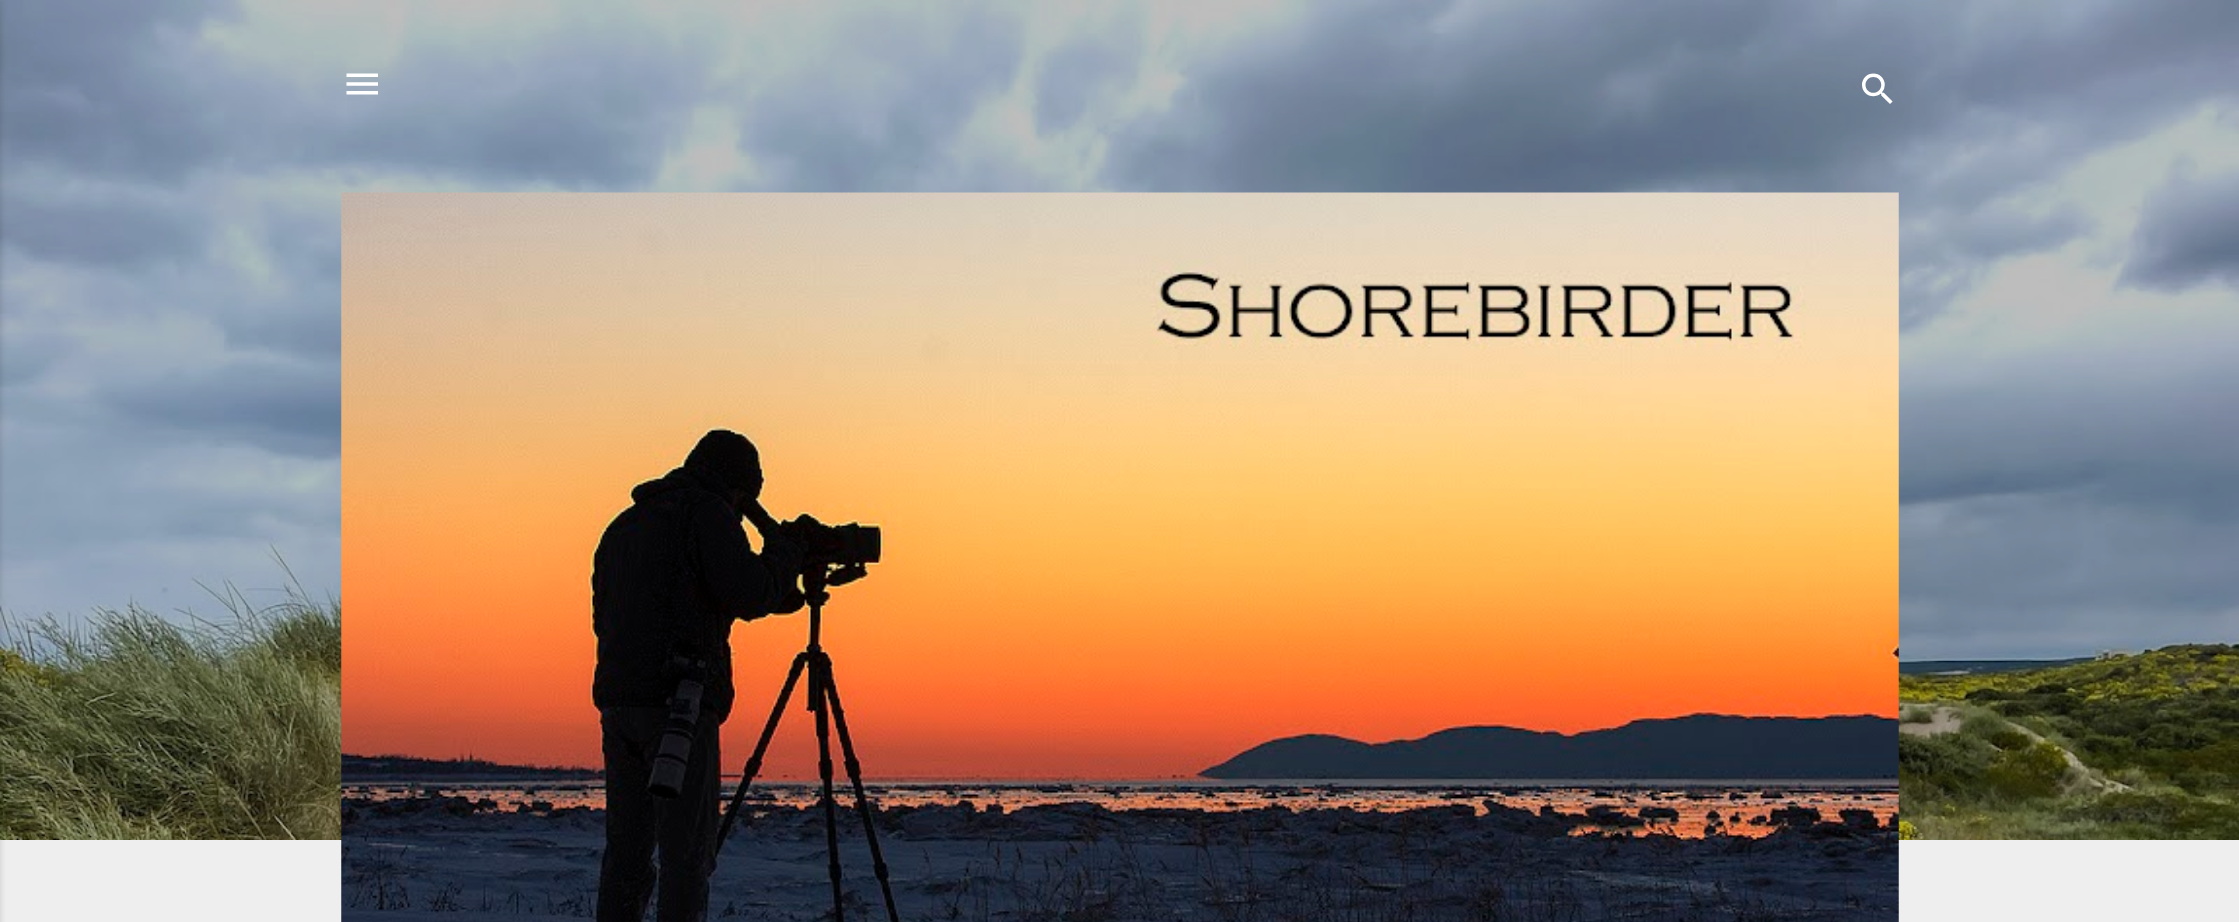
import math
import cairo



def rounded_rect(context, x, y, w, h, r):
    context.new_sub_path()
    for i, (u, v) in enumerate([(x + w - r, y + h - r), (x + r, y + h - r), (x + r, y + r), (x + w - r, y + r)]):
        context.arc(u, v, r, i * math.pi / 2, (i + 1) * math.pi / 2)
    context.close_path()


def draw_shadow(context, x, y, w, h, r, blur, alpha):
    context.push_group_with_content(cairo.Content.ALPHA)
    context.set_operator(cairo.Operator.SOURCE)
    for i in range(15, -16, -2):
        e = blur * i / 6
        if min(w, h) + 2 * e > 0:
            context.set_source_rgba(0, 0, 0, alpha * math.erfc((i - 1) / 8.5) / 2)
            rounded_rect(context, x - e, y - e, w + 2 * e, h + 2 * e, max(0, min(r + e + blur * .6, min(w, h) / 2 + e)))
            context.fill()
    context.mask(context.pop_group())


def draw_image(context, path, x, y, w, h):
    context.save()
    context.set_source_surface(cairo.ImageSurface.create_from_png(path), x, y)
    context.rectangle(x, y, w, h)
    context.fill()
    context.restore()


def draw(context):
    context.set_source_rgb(238 / 255, 238 / 255, 238 / 255)
    context.paint()
    draw_image(context, "images/1.png", 0, 0, 2239, 840)
    draw_image(context, "images/2.png", 346, 73, 32, 22)
    draw_image(context, "images/3.png", 1862, 73, 31, 31)
    draw_image(context, "images/4.png", 341, 192, 1558, 730)
    context.set_source_rgb(0, 0, 0)
    draw_shadow(context, -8, 2, 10, 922, 0, 2.5, 0.1)


surface = cairo.ImageSurface(cairo.Format.RGB24, 2239, 922)
context = cairo.Context(surface)
options = cairo.FontOptions()
options.set_hint_metrics(cairo.HintMetrics.OFF)
options.set_hint_style(cairo.HintStyle.NONE)
context.set_font_options(options)
context.set_miter_limit(4)
draw(context)
surface.write_to_png("out.png")
